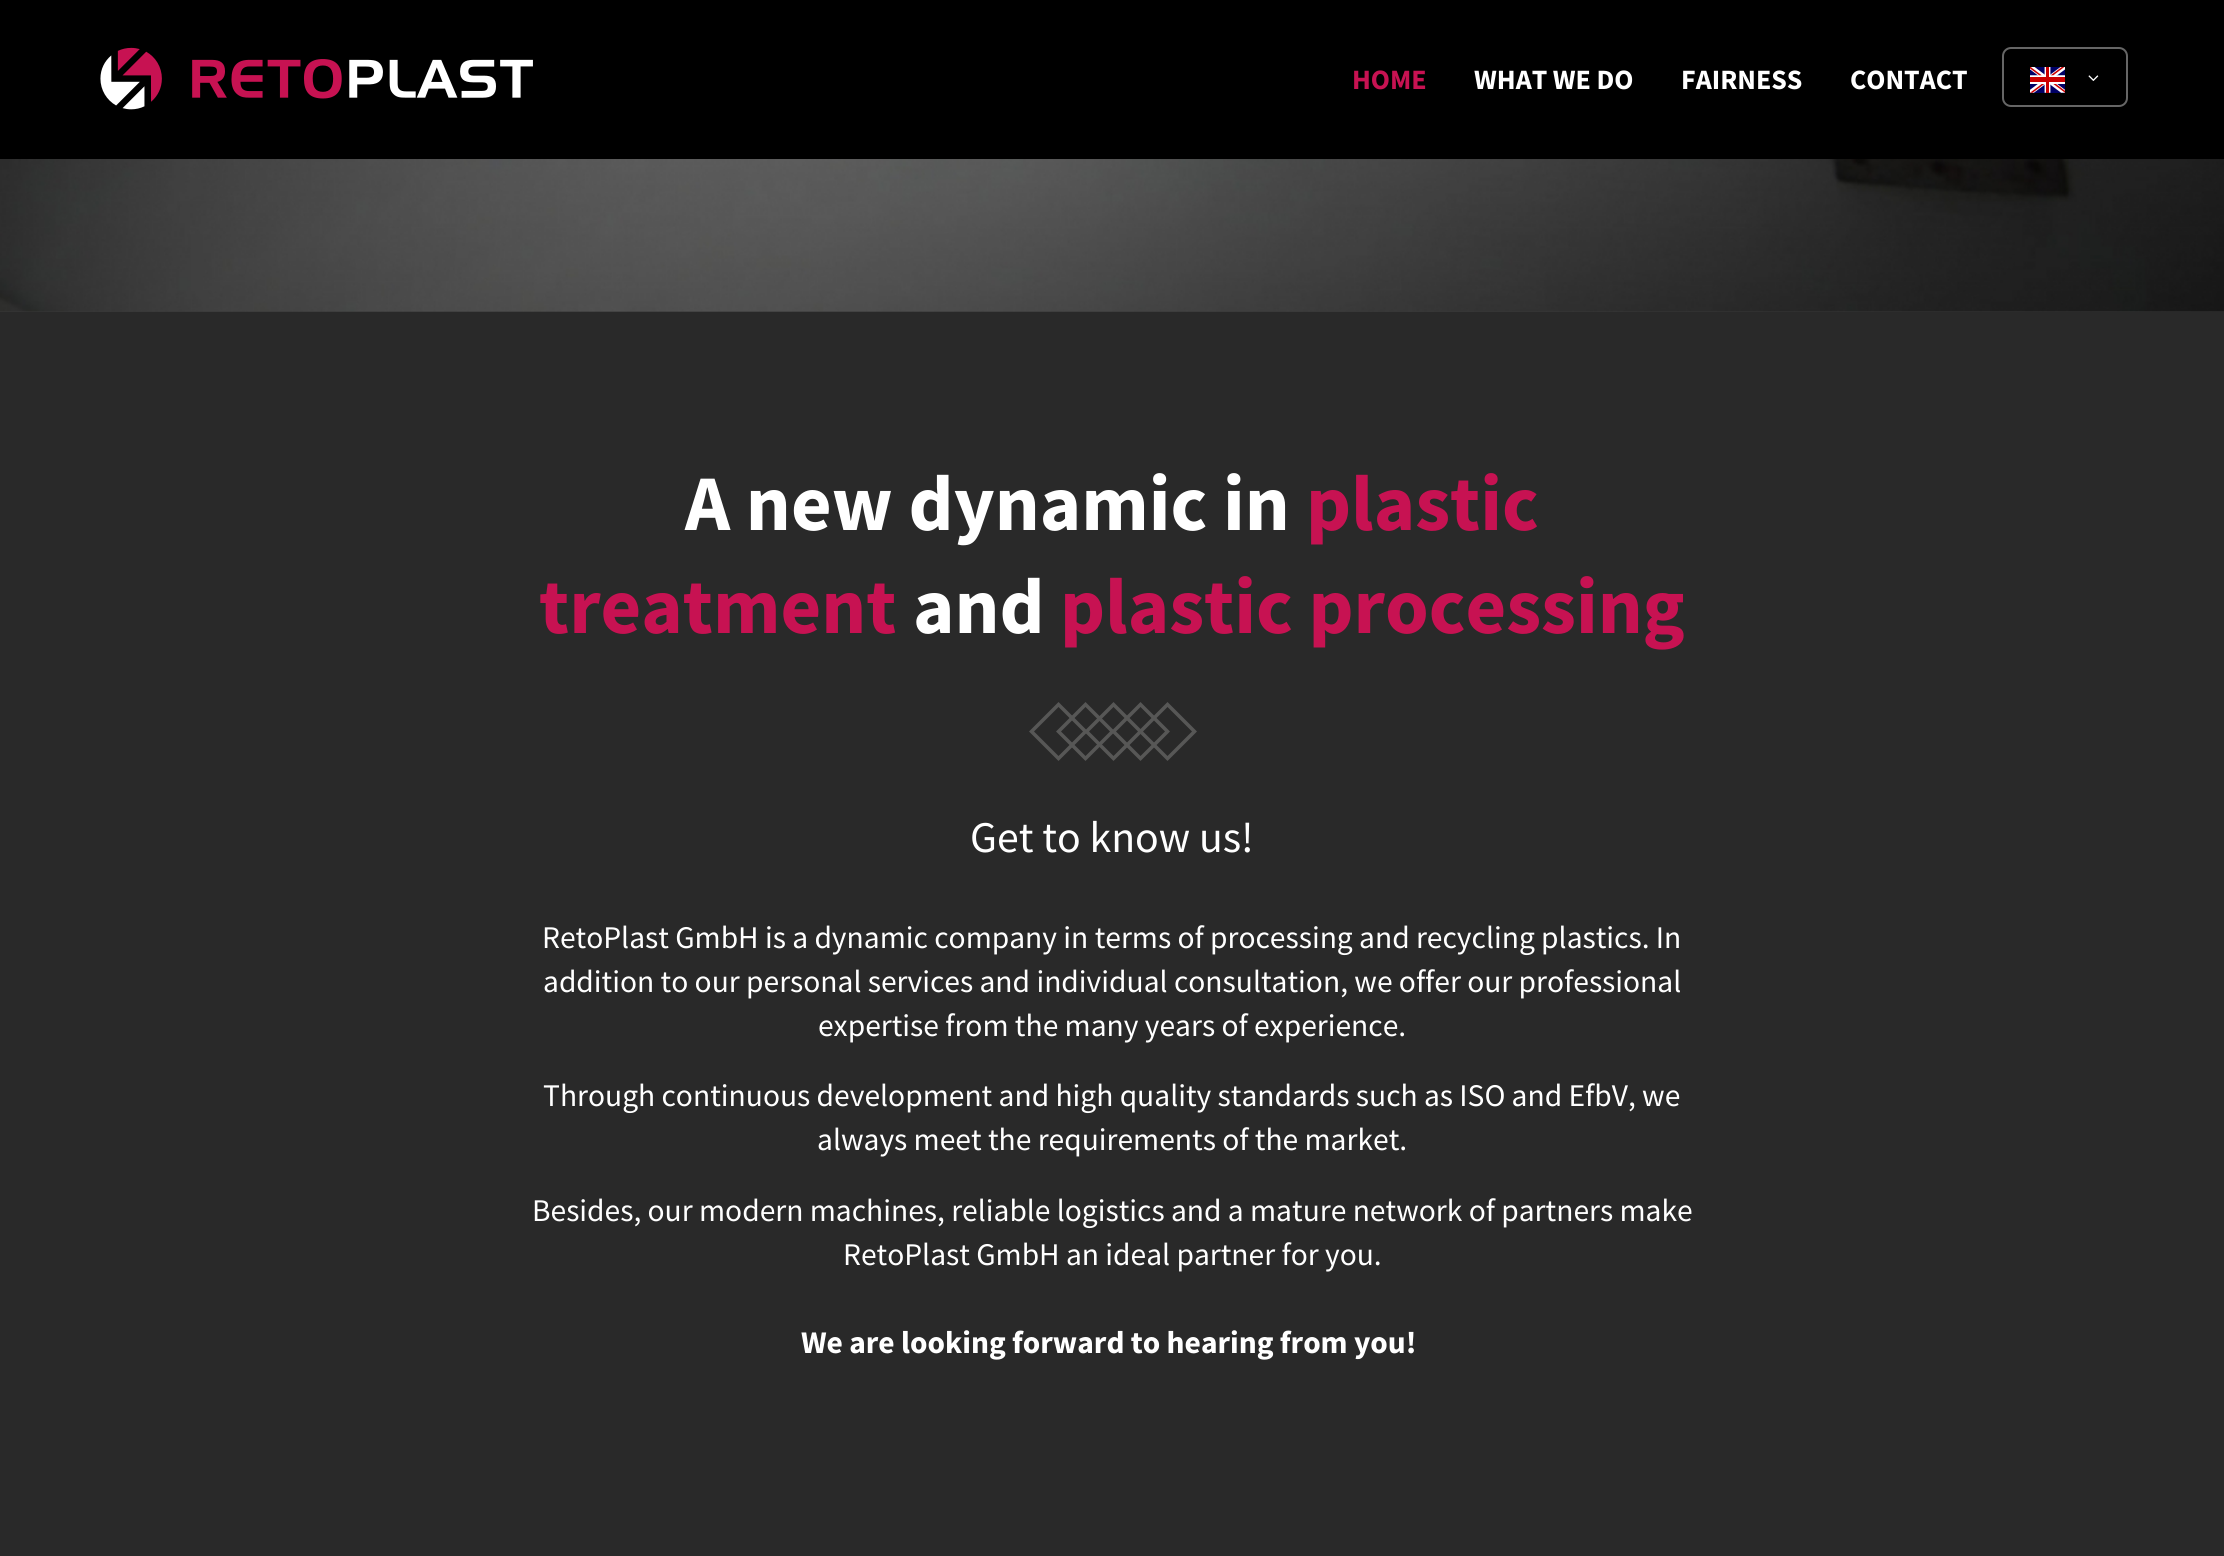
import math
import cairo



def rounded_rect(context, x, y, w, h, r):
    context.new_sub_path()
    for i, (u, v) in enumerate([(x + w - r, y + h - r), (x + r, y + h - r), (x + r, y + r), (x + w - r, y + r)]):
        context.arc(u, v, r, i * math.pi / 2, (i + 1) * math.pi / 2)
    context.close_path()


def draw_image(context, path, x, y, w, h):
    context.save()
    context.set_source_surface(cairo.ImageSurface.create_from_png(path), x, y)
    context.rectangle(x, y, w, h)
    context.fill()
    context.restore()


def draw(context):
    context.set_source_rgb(57 / 255, 57 / 255, 57 / 255)
    context.paint()
    context.set_source_rgb(0, 0, 0)
    context.rectangle(0, 0, 2224, 159)
    context.fill()
    draw_image(context, "images/1.png", 100, 47, 433, 63)
    rounded_rect(context, 2003, 48, 124, 58, 8)
    context.set_source_rgb(102 / 255, 102 / 255, 102 / 255)
    context.stroke()
    draw_image(context, "images/2.png", 2030, 67, 35, 26)
    draw_image(context, "images/3.png", 2088, 75, 11, 6)
    draw_image(context, "images/4.png", 0, 159, 2224, 153)
    context.set_source_rgb(41 / 255, 41 / 255, 41 / 255)
    context.rectangle(0, 312, 2224, 1244)
    context.fill()
    context.new_path()
    context.move_to(1058.5, 704.5)
    context.line_to(1085.5, 731.5)
    context.line_to(1058.5, 758.5)
    context.line_to(1031.5, 731.5)
    context.close_path()
    context.set_source_rgb(87 / 255, 87 / 255, 86 / 255)
    context.set_line_width(3.5)
    context.stroke()
    context.new_path()
    context.move_to(1085.5, 704.5)
    context.line_to(1112.5, 731.5)
    context.line_to(1085.5, 758.5)
    context.line_to(1058.5, 731.5)
    context.close_path()
    context.stroke()
    context.new_path()
    context.move_to(1140.5, 704.5)
    context.line_to(1167.5, 731.5)
    context.line_to(1140.5, 758.5)
    context.line_to(1113.5, 731.5)
    context.close_path()
    context.stroke()
    context.new_path()
    context.move_to(1113.5, 704.5)
    context.line_to(1140.5, 731.5)
    context.line_to(1113.5, 758.5)
    context.line_to(1086.5, 731.5)
    context.close_path()
    context.stroke()
    context.new_path()
    context.move_to(1167.5, 704.5)
    context.line_to(1194.5, 731.5)
    context.line_to(1167.5, 758.5)
    context.line_to(1140.5, 731.5)
    context.close_path()
    context.stroke()
    context.select_font_face("Source Sans Pro", cairo.FontSlant.NORMAL, cairo.FontWeight.BOLD)
    context.set_font_size(28)
    context.set_source_rgb(199 / 255, 18 / 255, 82 / 255)
    context.move_to(1352, 89)
    context.show_text("HOME")
    context.set_source_rgb(1, 1, 1)
    context.move_to(1474, 89)
    context.show_text("WHAT WE DO")
    context.move_to(1681, 89)
    context.show_text("FAIRNESS")
    context.move_to(1850, 89)
    context.show_text("CONTACT")
    context.set_font_size(78.75)
    context.move_to(685, 530)
    context.show_text("A new dynamic in")
    context.set_source_rgb(199 / 255, 18 / 255, 82 / 255)
    context.move_to(1306, 530)
    context.show_text("plastic")
    context.move_to(539, 633)
    context.show_text("treatment")
    context.set_source_rgb(1, 1, 1)
    context.move_to(913, 633)
    context.show_text("and")
    context.set_source_rgb(199 / 255, 18 / 255, 82 / 255)
    context.move_to(1060, 633)
    context.show_text("plastic processing")
    context.select_font_face("Source Sans Pro")
    context.set_font_size(43.75)
    context.set_source_rgb(1, 1, 1)
    context.move_to(970, 852)
    context.show_text("Get to know us!")
    context.set_font_size(31.5)
    context.move_to(542, 948)
    context.show_text("RetoPlast GmbH is a dynamic company in terms of processing and recycling plastics. In")
    context.move_to(543, 992)
    context.show_text("addition to our personal services and individual consultation, we offer our professional")
    context.move_to(818, 1036)
    context.show_text("expertise from the many years of experience.")
    context.move_to(543, 1106)
    context.show_text("Through continuous development and high quality standards such as ISO and EfbV, we")
    context.move_to(817, 1150)
    context.show_text("always meet the requirements of the market.")
    context.move_to(532, 1221)
    context.show_text("Besides, our modern machines, reliable logistics and a mature network of partners make")
    context.move_to(843, 1265)
    context.show_text("RetoPlast GmbH an ideal partner for you.")
    context.select_font_face("Source Sans Pro", cairo.FontSlant.NORMAL, cairo.FontWeight.BOLD)
    context.move_to(801, 1353)
    context.show_text("We are looking forward to hearing from you!")


surface = cairo.ImageSurface(cairo.Format.RGB24, 2224, 1556)
context = cairo.Context(surface)
options = cairo.FontOptions()
options.set_hint_metrics(cairo.HintMetrics.OFF)
options.set_hint_style(cairo.HintStyle.NONE)
context.set_font_options(options)
context.set_miter_limit(4)
draw(context)
surface.write_to_png("out.png")
